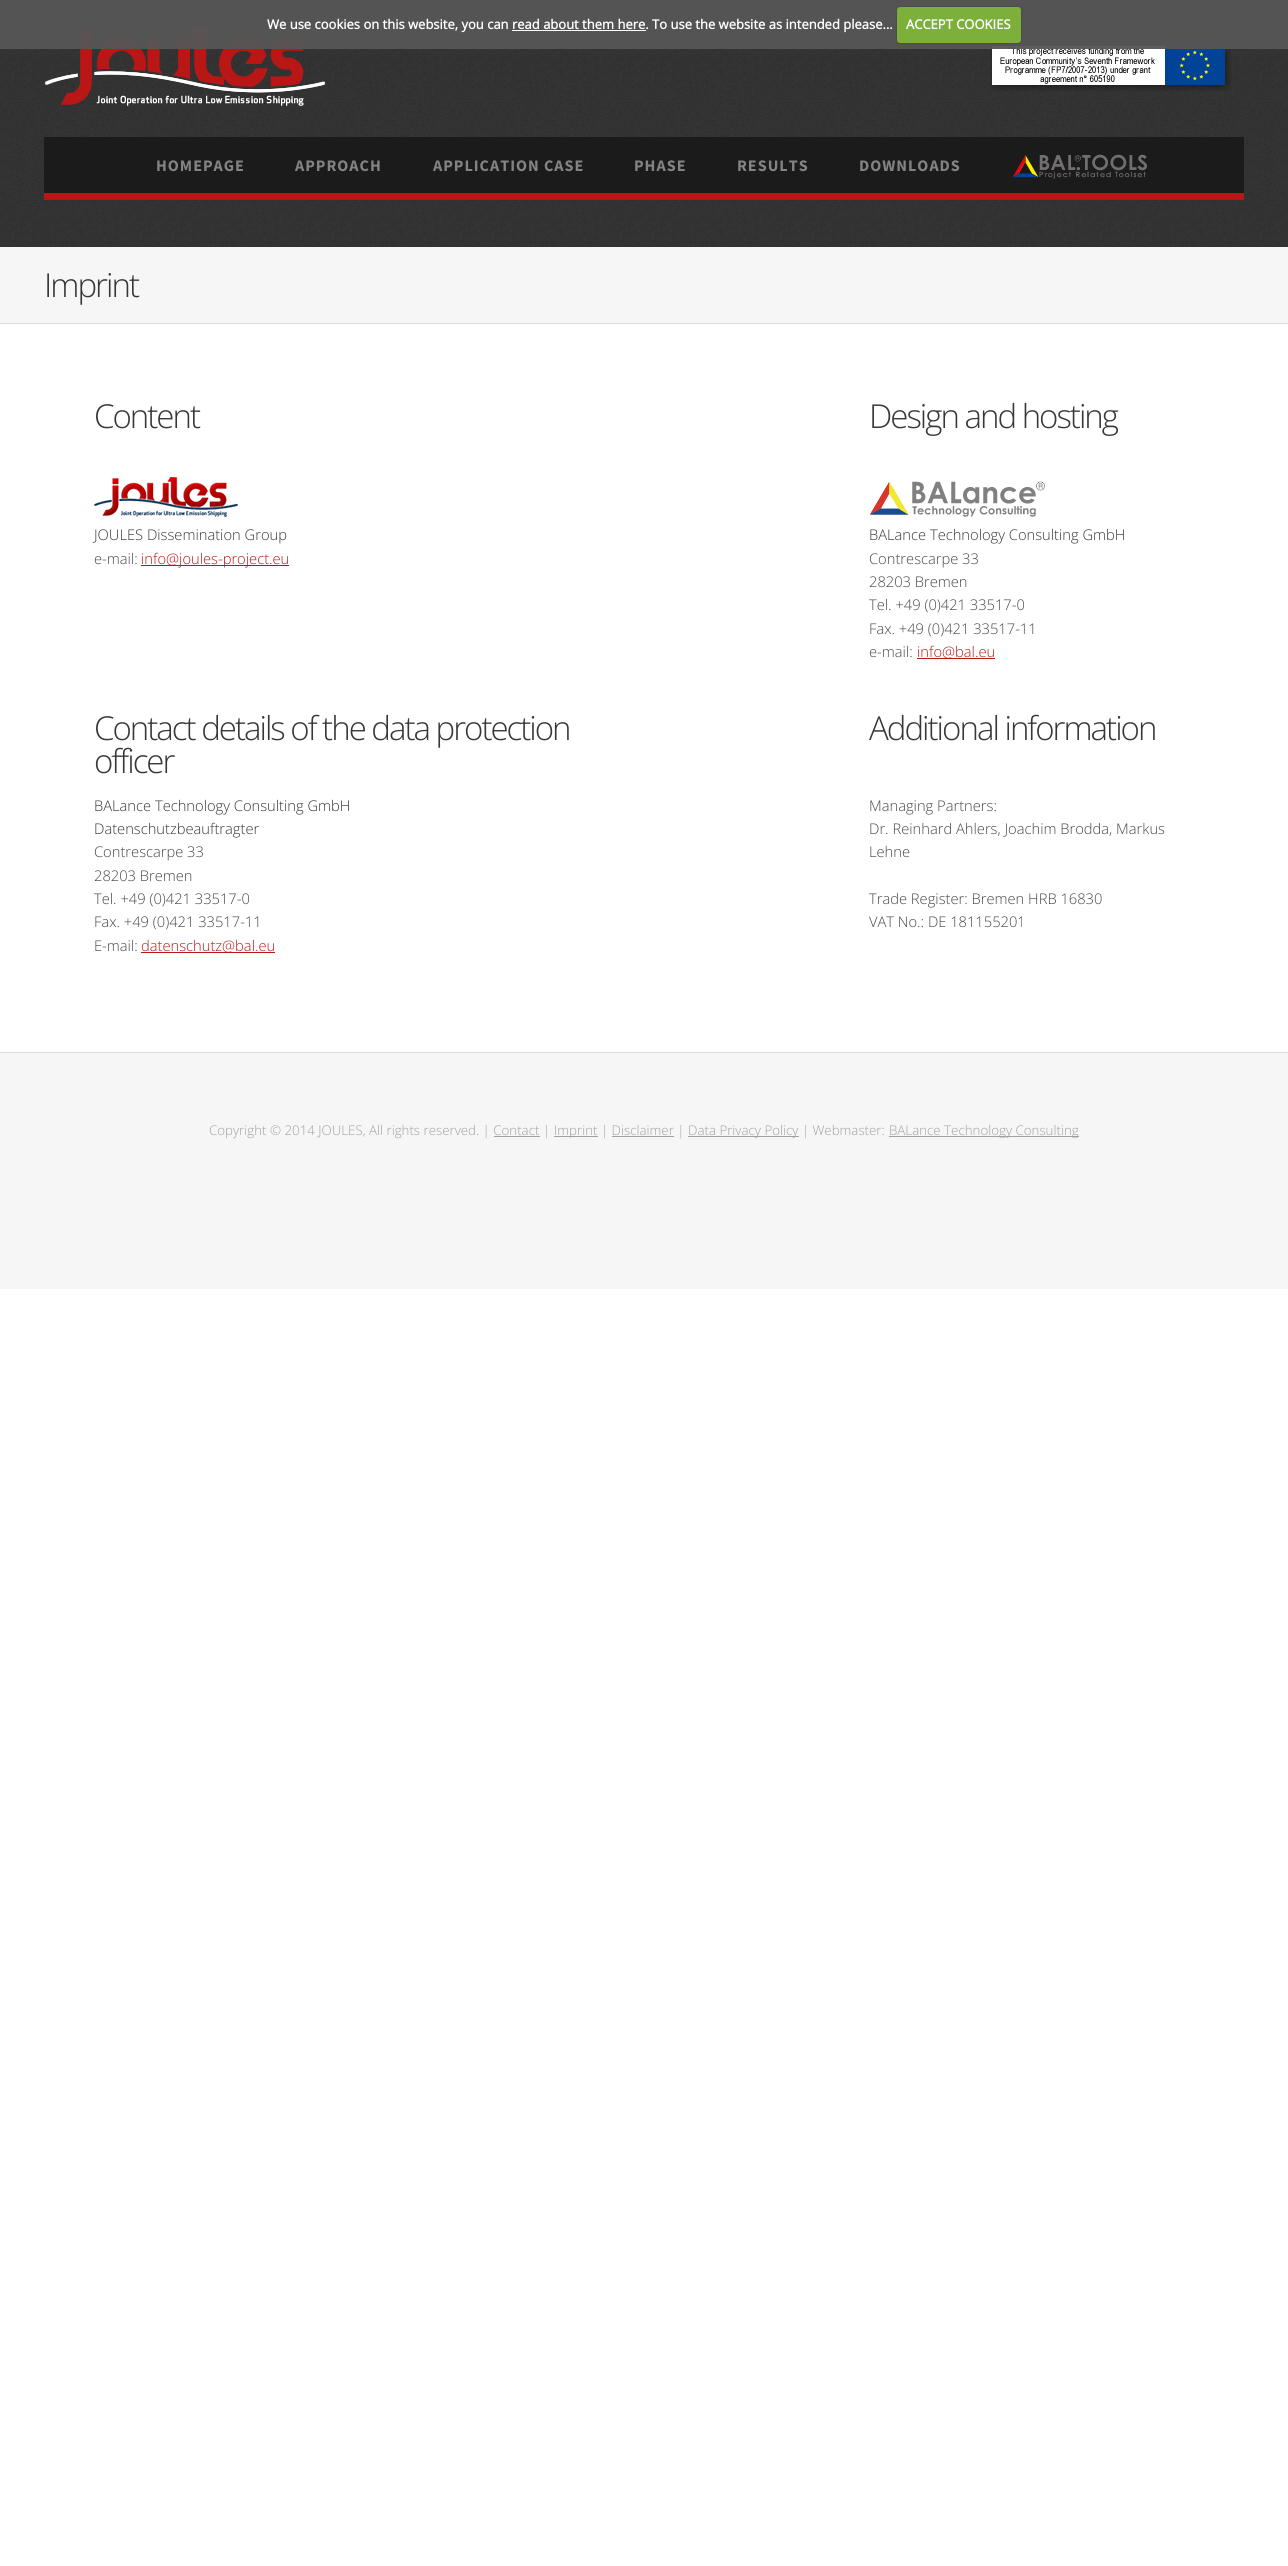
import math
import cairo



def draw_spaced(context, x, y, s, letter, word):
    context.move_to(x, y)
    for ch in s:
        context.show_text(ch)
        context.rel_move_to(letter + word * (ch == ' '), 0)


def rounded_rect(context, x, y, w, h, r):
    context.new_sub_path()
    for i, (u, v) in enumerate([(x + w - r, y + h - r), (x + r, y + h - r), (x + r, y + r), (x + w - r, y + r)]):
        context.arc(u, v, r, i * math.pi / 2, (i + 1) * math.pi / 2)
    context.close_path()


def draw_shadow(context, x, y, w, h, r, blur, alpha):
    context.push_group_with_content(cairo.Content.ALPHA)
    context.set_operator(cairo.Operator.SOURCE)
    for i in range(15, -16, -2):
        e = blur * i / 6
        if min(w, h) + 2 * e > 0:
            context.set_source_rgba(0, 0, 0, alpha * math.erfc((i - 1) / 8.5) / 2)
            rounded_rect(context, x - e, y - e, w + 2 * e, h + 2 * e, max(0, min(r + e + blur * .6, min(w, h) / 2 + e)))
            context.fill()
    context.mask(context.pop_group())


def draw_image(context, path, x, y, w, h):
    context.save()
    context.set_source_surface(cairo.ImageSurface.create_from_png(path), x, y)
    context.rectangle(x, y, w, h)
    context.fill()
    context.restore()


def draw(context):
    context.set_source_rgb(1, 1, 1)
    context.paint()
    draw_image(context, "images/1.png", 0, 0, 1288, 247)
    draw_image(context, "images/2.png", 45, 27, 280, 79)
    draw_image(context, "images/3.png", 990, 44, 241, 47)
    context.set_source_rgba(86 / 255, 86 / 255, 86 / 255, 0.95)
    context.rectangle(0, 0, 1288, 49)
    context.fill()
    context.set_source_rgb(0, 0, 0)
    draw_shadow(context, 897, 7, 124, 36, 3, 1, 0.25)
    context.set_source_rgb(125 / 255, 175 / 255, 59 / 255)
    rounded_rect(context, 897, 7, 124, 36, 3)
    context.fill()
    context.set_source_rgb(1, 1, 1)
    context.rectangle(512, 30, 134, 1)
    context.fill()
    context.set_source_rgb(27 / 255, 27 / 255, 27 / 255)
    context.rectangle(44, 137, 1200, 56)
    context.fill()
    context.set_source_rgb(185 / 255, 23 / 255, 21 / 255)
    context.rectangle(44, 193, 1200, 7)
    context.fill()
    draw_image(context, "images/4.png", 1012, 154, 135, 25)
    context.set_source_rgb(246 / 255, 246 / 255, 246 / 255)
    context.rectangle(0, 247, 1288, 76)
    context.fill()
    context.set_source_rgb(217 / 255, 217 / 255, 217 / 255)
    context.rectangle(0, 323, 1288, 1)
    context.fill()
    draw_image(context, "images/5.png", 94, 477, 144, 40)
    context.set_source_rgb(185 / 255, 23 / 255, 21 / 255)
    context.rectangle(141, 565, 148, 1)
    context.fill()
    draw_image(context, "images/6.png", 870, 481, 175, 36)
    context.rectangle(917, 658, 78, 1)
    context.fill()
    context.rectangle(141, 952, 134, 1)
    context.fill()
    context.set_source_rgb(246 / 255, 246 / 255, 246 / 255)
    context.rectangle(0, 1053, 1288, 236)
    context.fill()
    context.set_source_rgb(217 / 255, 217 / 255, 217 / 255)
    context.rectangle(0, 1052, 1288, 1)
    context.fill()
    context.set_source_rgb(160 / 255, 160 / 255, 160 / 255)
    context.rectangle(554, 1136, 44, 1)
    context.fill()
    context.rectangle(688, 1136, 111, 1)
    context.fill()
    context.rectangle(889, 1136, 190, 1)
    context.fill()
    context.rectangle(494, 1136, 46, 1)
    context.fill()
    context.rectangle(612, 1136, 62, 1)
    context.fill()
    context.select_font_face("Open Sans", cairo.FontSlant.NORMAL, cairo.FontWeight.BOLD)
    context.set_font_size(13)
    context.set_source_rgb(1, 1, 1)
    context.move_to(267, 29)
    context.show_text("We use cookies on this website, you can read about them here. To use the website as intended please...")
    context.move_to(906, 29)
    context.show_text("ACCEPT COOKIES")
    context.select_font_face("Source Sans Pro", cairo.FontSlant.NORMAL, cairo.FontWeight.BOLD)
    context.set_font_size(16.1)
    context.set_source_rgb(131 / 255, 131 / 255, 131 / 255)
    draw_spaced(context, 156, 171, "HOMEPAGE", 1, 0)
    draw_spaced(context, 295, 171, "APPROACH", 1, 0)
    draw_spaced(context, 433, 171, "APPLICATION CASE", 1, 0)
    draw_spaced(context, 634, 171, "PHASE", 1, 0)
    draw_spaced(context, 737, 171, "RESULTS", 1, 0)
    draw_spaced(context, 859, 171, "DOWNLOADS", 1, 0)
    context.select_font_face("Open Sans Light")
    context.set_font_size(33)
    context.set_source_rgb(55 / 255, 55 / 255, 55 / 255)
    draw_spaced(context, 44, 297, "Imprint", -2, 0)
    draw_spaced(context, 94, 428, "Content", -2, 0)
    draw_spaced(context, 869, 428, "Design and hosting", -2, 0)
    context.set_font_size(14.7)
    context.move_to(94, 540)
    context.show_text("JOULES Dissemination Group")
    context.set_source_rgb(71 / 255, 71 / 255, 71 / 255)
    context.move_to(94, 564)
    context.show_text("e-mail:")
    context.set_source_rgb(185 / 255, 23 / 255, 21 / 255)
    context.move_to(141, 564)
    context.show_text("info@joules-project.eu")
    context.set_source_rgb(55 / 255, 55 / 255, 55 / 255)
    context.move_to(869, 540)
    context.show_text("BALance Technology Consulting GmbH")
    context.set_source_rgb(71 / 255, 71 / 255, 71 / 255)
    context.move_to(869, 564)
    context.show_text("Contrescarpe 33")
    context.move_to(869, 587)
    context.show_text("28203 Bremen")
    context.move_to(869, 610)
    context.show_text("Tel. +49 (0)421 33517-0")
    context.move_to(869, 634)
    context.show_text("Fax. +49 (0)421 33517-11")
    context.move_to(869, 657)
    context.show_text("e-mail:")
    context.set_source_rgb(185 / 255, 23 / 255, 21 / 255)
    context.move_to(917, 657)
    context.show_text("info@bal.eu")
    context.set_font_size(33)
    context.set_source_rgb(55 / 255, 55 / 255, 55 / 255)
    draw_spaced(context, 94, 740, "Contact details of the data protection", -2, 0)
    draw_spaced(context, 94, 773, "officer", -2, 0)
    draw_spaced(context, 869, 740, "Additional information", -2, 0)
    context.set_font_size(14.7)
    context.move_to(94, 811)
    context.show_text("BALance Technology Consulting GmbH")
    context.move_to(94, 834)
    context.show_text("Datenschutzbeauftragter")
    context.set_source_rgb(71 / 255, 71 / 255, 71 / 255)
    context.move_to(94, 857)
    context.show_text("Contrescarpe 33")
    context.move_to(94, 881)
    context.show_text("28203 Bremen")
    context.move_to(94, 904)
    context.show_text("Tel. +49 (0)421 33517-0")
    context.move_to(94, 927)
    context.show_text("Fax. +49 (0)421 33517-11")
    context.move_to(94, 951)
    context.show_text("E-mail:")
    context.set_source_rgb(185 / 255, 23 / 255, 21 / 255)
    context.move_to(141, 951)
    context.show_text("datenschutz@bal.eu")
    context.set_source_rgb(71 / 255, 71 / 255, 71 / 255)
    context.move_to(869, 811)
    context.show_text("Managing Partners:")
    context.move_to(869, 834)
    context.show_text("Dr. Reinhard Ahlers, Joachim Brodda, Markus")
    context.move_to(869, 857)
    context.show_text("Lehne")
    context.move_to(869, 904)
    context.show_text("Trade Register: Bremen HRB 16830")
    context.move_to(869, 927)
    context.show_text("VAT No.: DE 181155201")
    context.set_font_size(13.3)
    context.set_source_rgb(160 / 255, 160 / 255, 160 / 255)
    context.move_to(209, 1135)
    context.show_text("Copyright © 2014 JOULES, All rights reserved. | Contact |")
    context.move_to(554, 1135)
    context.show_text("Imprint | Disclaimer |")
    context.move_to(688, 1135)
    context.show_text("Data Privacy Policy | Webmaster:")
    context.move_to(889, 1135)
    context.show_text("BALance Technology Consulting")


surface = cairo.ImageSurface(cairo.Format.RGB24, 1288, 2566)
context = cairo.Context(surface)
options = cairo.FontOptions()
options.set_hint_metrics(cairo.HintMetrics.OFF)
options.set_hint_style(cairo.HintStyle.NONE)
context.set_font_options(options)
context.set_miter_limit(4)
draw(context)
surface.write_to_png("out.png")
